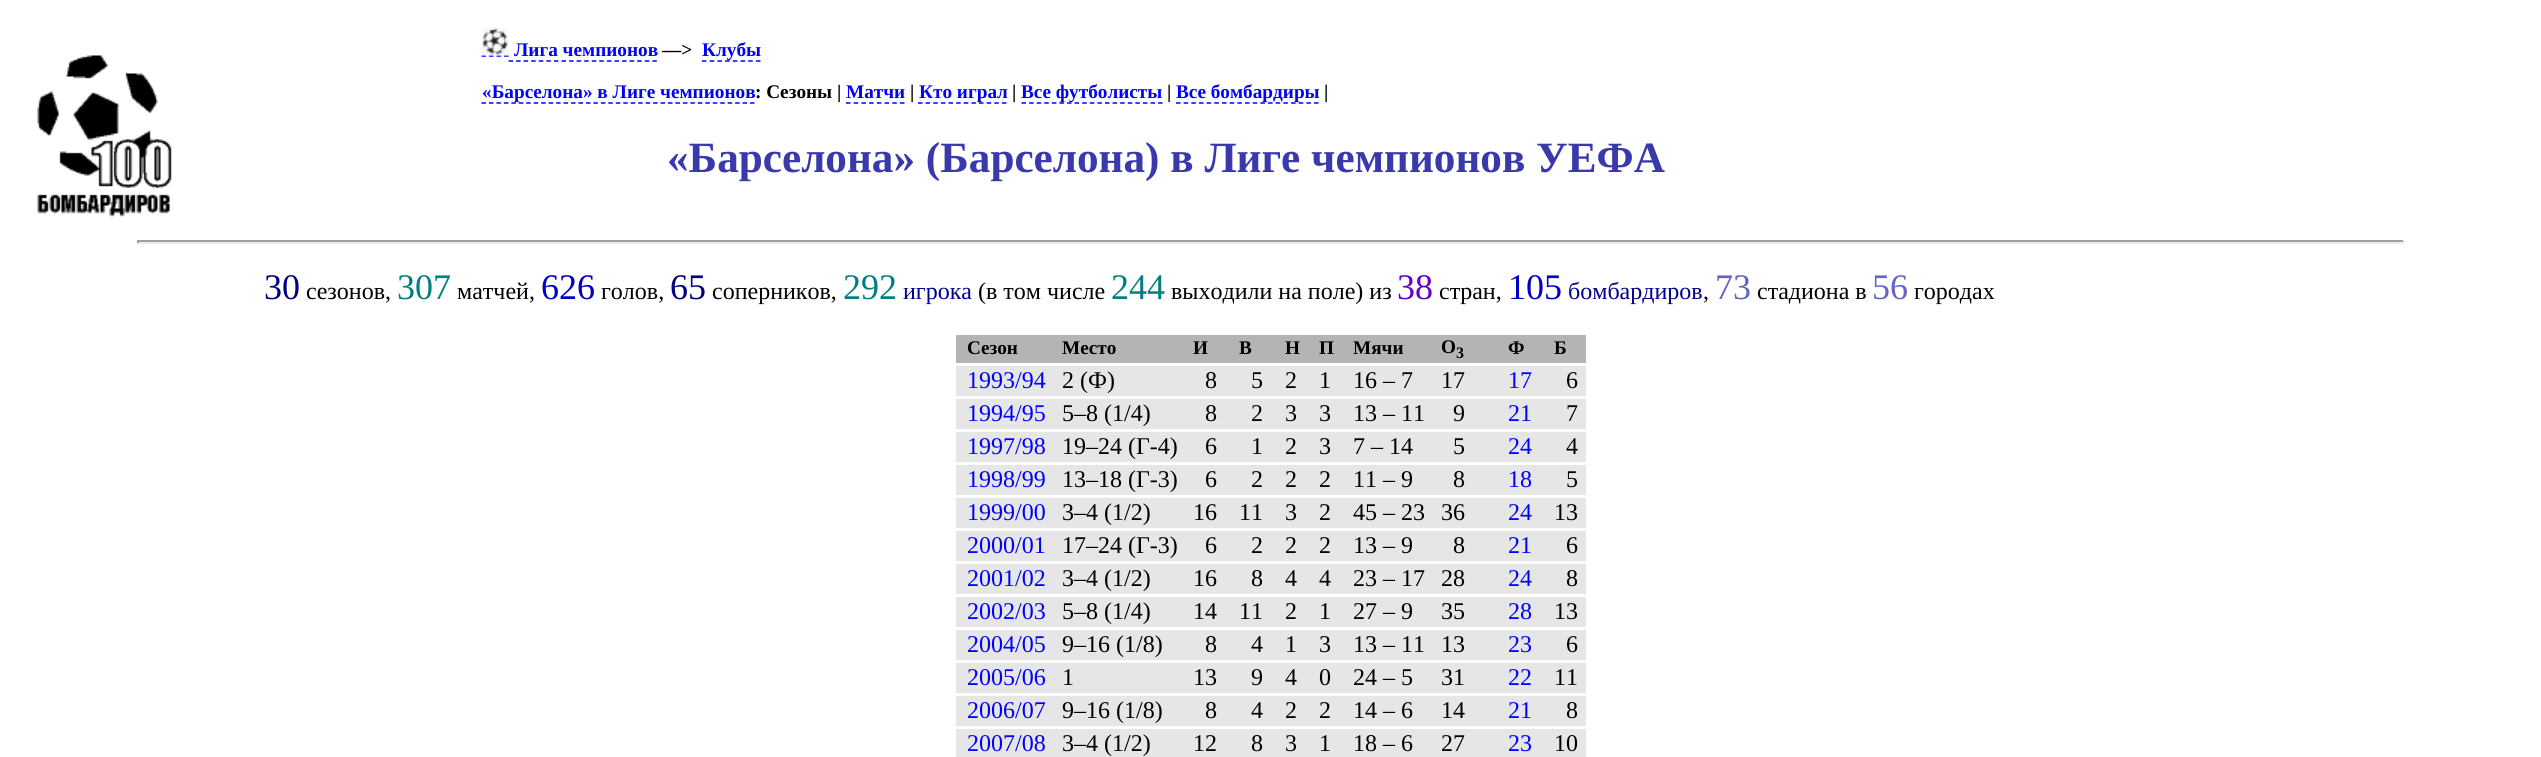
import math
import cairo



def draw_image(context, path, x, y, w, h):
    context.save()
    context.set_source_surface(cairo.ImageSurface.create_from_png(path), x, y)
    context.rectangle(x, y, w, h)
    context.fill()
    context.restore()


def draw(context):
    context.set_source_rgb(1, 1, 1)
    context.paint()
    draw_image(context, "images/1.png", 37, 55, 135, 162)
    context.new_path()
    context.move_to(481.5, 56)
    context.line_to(508.5, 56)
    context.set_source_rgb(0, 0, 1)
    context.set_line_width(1.5)
    context.set_dash([4.5, 3])
    context.stroke()
    draw_image(context, "images/2.png", 481, 28, 28, 28)
    context.new_path()
    context.move_to(508.5, 61)
    context.line_to(657, 61)
    context.set_dash([4.5, 3.07])
    context.stroke()
    context.new_path()
    context.move_to(702, 61)
    context.line_to(760.5, 61)
    context.set_dash([4.5, 3.21])
    context.stroke()
    context.new_path()
    context.move_to(481.5, 103)
    context.line_to(754.5, 103)
    context.set_dash([4.5, 2.96])
    context.stroke()
    context.new_path()
    context.move_to(846, 103)
    context.line_to(904.5, 103)
    context.set_dash([4.5, 3.21])
    context.stroke()
    context.new_path()
    context.move_to(918, 103)
    context.line_to(1006.5, 103)
    context.set_dash([4.5, 3.13])
    context.stroke()
    context.new_path()
    context.move_to(1021.5, 103)
    context.line_to(1162.5, 103)
    context.set_dash([4.5, 3.09])
    context.stroke()
    context.new_path()
    context.move_to(1176, 103)
    context.line_to(1318.5, 103)
    context.set_dash([4.5, 3.17])
    context.stroke()
    context.set_source_rgb(159 / 255, 159 / 255, 159 / 255)
    context.rectangle(137, 240, 2268, 2)
    context.fill()
    context.set_source_rgb(238 / 255, 238 / 255, 238 / 255)
    context.rectangle(2403, 240, 2, 3)
    context.fill()
    context.rectangle(137, 242, 2268, 2)
    context.fill()
    context.set_source_rgb(159 / 255, 159 / 255, 159 / 255)
    context.rectangle(137, 240, 2, 3)
    context.fill()
    context.set_source_rgb(180 / 255, 180 / 255, 180 / 255)
    context.rectangle(956, 335, 630, 28)
    context.fill()
    context.set_source_rgb(230 / 255, 230 / 255, 230 / 255)
    context.rectangle(956, 366, 630, 30)
    context.fill()
    context.rectangle(956, 399, 630, 30)
    context.fill()
    context.rectangle(956, 432, 630, 30)
    context.fill()
    context.rectangle(956, 465, 630, 30)
    context.fill()
    context.rectangle(956, 498, 630, 30)
    context.fill()
    context.rectangle(956, 531, 630, 30)
    context.fill()
    context.rectangle(956, 564, 630, 30)
    context.fill()
    context.rectangle(956, 597, 630, 30)
    context.fill()
    context.rectangle(956, 630, 630, 30)
    context.fill()
    context.rectangle(956, 663, 630, 30)
    context.fill()
    context.rectangle(956, 696, 630, 30)
    context.fill()
    context.rectangle(956, 729, 630, 28)
    context.fill()
    context.select_font_face("Liberation Serif", cairo.FontSlant.NORMAL, cairo.FontWeight.BOLD)
    context.set_font_size(19.25)
    context.set_source_rgb(0, 0, 1)
    context.move_to(514, 56)
    context.show_text("Лига чемпионов")
    context.set_source_rgb(0, 0, 0)
    context.move_to(662, 56)
    context.show_text("—>")
    context.set_source_rgb(0, 0, 1)
    context.move_to(702, 56)
    context.show_text("Клубы")
    context.move_to(482, 98)
    context.show_text("«Барселона» в Лиге чемпионов")
    context.set_source_rgb(0, 0, 0)
    context.move_to(755, 98)
    context.show_text(": Сезоны |")
    context.set_source_rgb(0, 0, 1)
    context.move_to(846, 98)
    context.show_text("Матчи")
    context.set_source_rgb(0, 0, 0)
    context.move_to(910, 98)
    context.show_text("|")
    context.set_source_rgb(0, 0, 1)
    context.move_to(919, 98)
    context.show_text("Кто играл")
    context.set_source_rgb(0, 0, 0)
    context.move_to(1012, 98)
    context.show_text("|")
    context.set_source_rgb(0, 0, 1)
    context.move_to(1021, 98)
    context.show_text("Все футболисты")
    context.set_source_rgb(0, 0, 0)
    context.move_to(1167, 98)
    context.show_text("|")
    context.set_source_rgb(0, 0, 1)
    context.move_to(1176, 98)
    context.show_text("Все бомбардиры")
    context.set_source_rgb(0, 0, 0)
    context.move_to(1324, 98)
    context.show_text("|")
    context.set_font_size(43.2)
    context.set_source_rgb(57 / 255, 57 / 255, 172 / 255)
    context.move_to(667, 172)
    context.show_text("«Барселона» (Барселона) в Лиге чемпионов УЕФА")
    context.select_font_face("Liberation Serif")
    context.set_font_size(36)
    context.set_source_rgb(0, 0, 127 / 255)
    context.move_to(264, 299)
    context.show_text("30")
    context.set_font_size(24)
    context.set_source_rgb(0, 0, 0)
    context.move_to(306, 299)
    context.show_text("сезонов,")
    context.set_font_size(36)
    context.set_source_rgb(0, 127 / 255, 127 / 255)
    context.move_to(397, 299)
    context.show_text("307")
    context.set_font_size(24)
    context.set_source_rgb(0, 0, 0)
    context.move_to(457, 299)
    context.show_text("матчей,")
    context.set_font_size(36)
    context.set_source_rgb(0, 0, 200 / 255)
    context.move_to(541, 299)
    context.show_text("626")
    context.set_font_size(24)
    context.set_source_rgb(0, 0, 0)
    context.move_to(601, 299)
    context.show_text("голов,")
    context.set_font_size(36)
    context.set_source_rgb(0, 0, 127 / 255)
    context.move_to(670, 299)
    context.show_text("65")
    context.set_font_size(24)
    context.set_source_rgb(0, 0, 0)
    context.move_to(712, 299)
    context.show_text("соперников,")
    context.set_font_size(36)
    context.set_source_rgb(0, 127 / 255, 127 / 255)
    context.move_to(843, 299)
    context.show_text("292")
    context.set_font_size(24)
    context.set_source_rgb(0, 0, 139 / 255)
    context.move_to(903, 299)
    context.show_text("игрока")
    context.set_source_rgb(0, 0, 0)
    context.move_to(978, 299)
    context.show_text("(в том числе")
    context.set_font_size(36)
    context.set_source_rgb(0, 127 / 255, 127 / 255)
    context.move_to(1111, 299)
    context.show_text("244")
    context.set_font_size(24)
    context.set_source_rgb(0, 0, 0)
    context.move_to(1171, 299)
    context.show_text("выходили на поле) из")
    context.set_font_size(36)
    context.set_source_rgb(100 / 255, 0, 200 / 255)
    context.move_to(1397, 299)
    context.show_text("38")
    context.set_font_size(24)
    context.set_source_rgb(0, 0, 0)
    context.move_to(1439, 299)
    context.show_text("стран,")
    context.set_font_size(36)
    context.set_source_rgb(0, 0, 200 / 255)
    context.move_to(1508, 299)
    context.show_text("105")
    context.set_font_size(24)
    context.set_source_rgb(0, 0, 139 / 255)
    context.move_to(1568, 299)
    context.show_text("бомбардиров")
    context.set_source_rgb(0, 0, 0)
    context.move_to(1703, 299)
    context.show_text(",")
    context.set_font_size(36)
    context.set_source_rgb(100 / 255, 100 / 255, 200 / 255)
    context.move_to(1715, 299)
    context.show_text("73")
    context.set_font_size(24)
    context.set_source_rgb(0, 0, 0)
    context.move_to(1757, 299)
    context.show_text("стадиона в")
    context.set_font_size(36)
    context.set_source_rgb(100 / 255, 100 / 255, 200 / 255)
    context.move_to(1872, 299)
    context.show_text("56")
    context.set_font_size(24)
    context.set_source_rgb(0, 0, 0)
    context.move_to(1914, 299)
    context.show_text("городах")
    context.select_font_face("Liberation Serif", cairo.FontSlant.NORMAL, cairo.FontWeight.BOLD)
    context.set_font_size(19.25)
    context.move_to(967, 354)
    context.show_text("Сезон")
    context.move_to(1062, 354)
    context.show_text("Место")
    context.move_to(1193, 354)
    context.show_text("И")
    context.move_to(1239, 354)
    context.show_text("В")
    context.move_to(1285, 354)
    context.show_text("Н")
    context.move_to(1319, 354)
    context.show_text("П")
    context.move_to(1353, 354)
    context.show_text("Мячи")
    context.move_to(1441, 353)
    context.show_text("О")
    context.set_font_size(16)
    context.move_to(1456, 358)
    context.show_text("3")
    context.set_font_size(19.25)
    context.move_to(1508, 354)
    context.show_text("Ф")
    context.move_to(1554, 354)
    context.show_text("Б")
    context.select_font_face("Liberation Serif")
    context.set_font_size(24)
    context.set_source_rgb(0, 0, 1)
    context.move_to(967, 388)
    context.show_text("1993/94")
    context.set_source_rgb(0, 0, 0)
    context.move_to(1062, 388)
    context.show_text("2 (Ф)")
    context.move_to(1205, 388)
    context.show_text("8")
    context.move_to(1251, 388)
    context.show_text("5")
    context.move_to(1285, 388)
    context.show_text("2")
    context.move_to(1319, 388)
    context.show_text("1")
    context.move_to(1353, 388)
    context.show_text("16 – 7")
    context.move_to(1441, 388)
    context.show_text("17")
    context.set_source_rgb(0, 0, 1)
    context.move_to(1508, 388)
    context.show_text("17")
    context.set_source_rgb(0, 0, 0)
    context.move_to(1566, 388)
    context.show_text("6")
    context.set_source_rgb(0, 0, 1)
    context.move_to(967, 421)
    context.show_text("1994/95")
    context.set_source_rgb(0, 0, 0)
    context.move_to(1062, 421)
    context.show_text("5–8 (1/4)")
    context.move_to(1205, 421)
    context.show_text("8")
    context.move_to(1251, 421)
    context.show_text("2")
    context.move_to(1285, 421)
    context.show_text("3")
    context.move_to(1319, 421)
    context.show_text("3")
    context.move_to(1353, 421)
    context.show_text("13 – 11")
    context.move_to(1453, 421)
    context.show_text("9")
    context.set_source_rgb(0, 0, 1)
    context.move_to(1508, 421)
    context.show_text("21")
    context.set_source_rgb(0, 0, 0)
    context.move_to(1566, 421)
    context.show_text("7")
    context.set_source_rgb(0, 0, 1)
    context.move_to(967, 454)
    context.show_text("1997/98")
    context.set_source_rgb(0, 0, 0)
    context.move_to(1062, 454)
    context.show_text("19–24 (Г-4)")
    context.move_to(1205, 454)
    context.show_text("6")
    context.move_to(1251, 454)
    context.show_text("1")
    context.move_to(1285, 454)
    context.show_text("2")
    context.move_to(1319, 454)
    context.show_text("3")
    context.move_to(1353, 454)
    context.show_text("7 – 14")
    context.move_to(1453, 454)
    context.show_text("5")
    context.set_source_rgb(0, 0, 1)
    context.move_to(1508, 454)
    context.show_text("24")
    context.set_source_rgb(0, 0, 0)
    context.move_to(1566, 454)
    context.show_text("4")
    context.set_source_rgb(0, 0, 1)
    context.move_to(967, 487)
    context.show_text("1998/99")
    context.set_source_rgb(0, 0, 0)
    context.move_to(1062, 487)
    context.show_text("13–18 (Г-3)")
    context.move_to(1205, 487)
    context.show_text("6")
    context.move_to(1251, 487)
    context.show_text("2")
    context.move_to(1285, 487)
    context.show_text("2")
    context.move_to(1319, 487)
    context.show_text("2")
    context.move_to(1353, 487)
    context.show_text("11 – 9")
    context.move_to(1453, 487)
    context.show_text("8")
    context.set_source_rgb(0, 0, 1)
    context.move_to(1508, 487)
    context.show_text("18")
    context.set_source_rgb(0, 0, 0)
    context.move_to(1566, 487)
    context.show_text("5")
    context.set_source_rgb(0, 0, 1)
    context.move_to(967, 520)
    context.show_text("1999/00")
    context.set_source_rgb(0, 0, 0)
    context.move_to(1062, 520)
    context.show_text("3–4 (1/2)")
    context.move_to(1193, 520)
    context.show_text("16")
    context.move_to(1239, 520)
    context.show_text("11")
    context.move_to(1285, 520)
    context.show_text("3")
    context.move_to(1319, 520)
    context.show_text("2")
    context.move_to(1353, 520)
    context.show_text("45 – 23")
    context.move_to(1441, 520)
    context.show_text("36")
    context.set_source_rgb(0, 0, 1)
    context.move_to(1508, 520)
    context.show_text("24")
    context.set_source_rgb(0, 0, 0)
    context.move_to(1554, 520)
    context.show_text("13")
    context.set_source_rgb(0, 0, 1)
    context.move_to(967, 553)
    context.show_text("2000/01")
    context.set_source_rgb(0, 0, 0)
    context.move_to(1062, 553)
    context.show_text("17–24 (Г-3)")
    context.move_to(1205, 553)
    context.show_text("6")
    context.move_to(1251, 553)
    context.show_text("2")
    context.move_to(1285, 553)
    context.show_text("2")
    context.move_to(1319, 553)
    context.show_text("2")
    context.move_to(1353, 553)
    context.show_text("13 – 9")
    context.move_to(1453, 553)
    context.show_text("8")
    context.set_source_rgb(0, 0, 1)
    context.move_to(1508, 553)
    context.show_text("21")
    context.set_source_rgb(0, 0, 0)
    context.move_to(1566, 553)
    context.show_text("6")
    context.set_source_rgb(0, 0, 1)
    context.move_to(967, 586)
    context.show_text("2001/02")
    context.set_source_rgb(0, 0, 0)
    context.move_to(1062, 586)
    context.show_text("3–4 (1/2)")
    context.move_to(1193, 586)
    context.show_text("16")
    context.move_to(1251, 586)
    context.show_text("8")
    context.move_to(1285, 586)
    context.show_text("4")
    context.move_to(1319, 586)
    context.show_text("4")
    context.move_to(1353, 586)
    context.show_text("23 – 17")
    context.move_to(1441, 586)
    context.show_text("28")
    context.set_source_rgb(0, 0, 1)
    context.move_to(1508, 586)
    context.show_text("24")
    context.set_source_rgb(0, 0, 0)
    context.move_to(1566, 586)
    context.show_text("8")
    context.set_source_rgb(0, 0, 1)
    context.move_to(967, 619)
    context.show_text("2002/03")
    context.set_source_rgb(0, 0, 0)
    context.move_to(1062, 619)
    context.show_text("5–8 (1/4)")
    context.move_to(1193, 619)
    context.show_text("14")
    context.move_to(1239, 619)
    context.show_text("11")
    context.move_to(1285, 619)
    context.show_text("2")
    context.move_to(1319, 619)
    context.show_text("1")
    context.move_to(1353, 619)
    context.show_text("27 – 9")
    context.move_to(1441, 619)
    context.show_text("35")
    context.set_source_rgb(0, 0, 1)
    context.move_to(1508, 619)
    context.show_text("28")
    context.set_source_rgb(0, 0, 0)
    context.move_to(1554, 619)
    context.show_text("13")
    context.set_source_rgb(0, 0, 1)
    context.move_to(967, 652)
    context.show_text("2004/05")
    context.set_source_rgb(0, 0, 0)
    context.move_to(1062, 652)
    context.show_text("9–16 (1/8)")
    context.move_to(1205, 652)
    context.show_text("8")
    context.move_to(1251, 652)
    context.show_text("4")
    context.move_to(1285, 652)
    context.show_text("1")
    context.move_to(1319, 652)
    context.show_text("3")
    context.move_to(1353, 652)
    context.show_text("13 – 11")
    context.move_to(1441, 652)
    context.show_text("13")
    context.set_source_rgb(0, 0, 1)
    context.move_to(1508, 652)
    context.show_text("23")
    context.set_source_rgb(0, 0, 0)
    context.move_to(1566, 652)
    context.show_text("6")
    context.set_source_rgb(0, 0, 1)
    context.move_to(967, 685)
    context.show_text("2005/06")
    context.set_source_rgb(0, 0, 0)
    context.move_to(1062, 685)
    context.show_text("1")
    context.move_to(1193, 685)
    context.show_text("13")
    context.move_to(1251, 685)
    context.show_text("9")
    context.move_to(1285, 685)
    context.show_text("4")
    context.move_to(1319, 685)
    context.show_text("0")
    context.move_to(1353, 685)
    context.show_text("24 – 5")
    context.move_to(1441, 685)
    context.show_text("31")
    context.set_source_rgb(0, 0, 1)
    context.move_to(1508, 685)
    context.show_text("22")
    context.set_source_rgb(0, 0, 0)
    context.move_to(1554, 685)
    context.show_text("11")
    context.set_source_rgb(0, 0, 1)
    context.move_to(967, 718)
    context.show_text("2006/07")
    context.set_source_rgb(0, 0, 0)
    context.move_to(1062, 718)
    context.show_text("9–16 (1/8)")
    context.move_to(1205, 718)
    context.show_text("8")
    context.move_to(1251, 718)
    context.show_text("4")
    context.move_to(1285, 718)
    context.show_text("2")
    context.move_to(1319, 718)
    context.show_text("2")
    context.move_to(1353, 718)
    context.show_text("14 – 6")
    context.move_to(1441, 718)
    context.show_text("14")
    context.set_source_rgb(0, 0, 1)
    context.move_to(1508, 718)
    context.show_text("21")
    context.set_source_rgb(0, 0, 0)
    context.move_to(1566, 718)
    context.show_text("8")
    context.set_source_rgb(0, 0, 1)
    context.move_to(967, 751)
    context.show_text("2007/08")
    context.set_source_rgb(0, 0, 0)
    context.move_to(1062, 751)
    context.show_text("3–4 (1/2)")
    context.move_to(1193, 751)
    context.show_text("12")
    context.move_to(1251, 751)
    context.show_text("8")
    context.move_to(1285, 751)
    context.show_text("3")
    context.move_to(1319, 751)
    context.show_text("1")
    context.move_to(1353, 751)
    context.show_text("18 – 6")
    context.move_to(1441, 751)
    context.show_text("27")
    context.set_source_rgb(0, 0, 1)
    context.move_to(1508, 751)
    context.show_text("23")
    context.set_source_rgb(0, 0, 0)
    context.move_to(1554, 751)
    context.show_text("10")


surface = cairo.ImageSurface(cairo.Format.RGB24, 2541, 757)
context = cairo.Context(surface)
options = cairo.FontOptions()
options.set_hint_metrics(cairo.HintMetrics.OFF)
options.set_hint_style(cairo.HintStyle.NONE)
context.set_font_options(options)
context.set_miter_limit(4)
draw(context)
surface.write_to_png("out.png")
